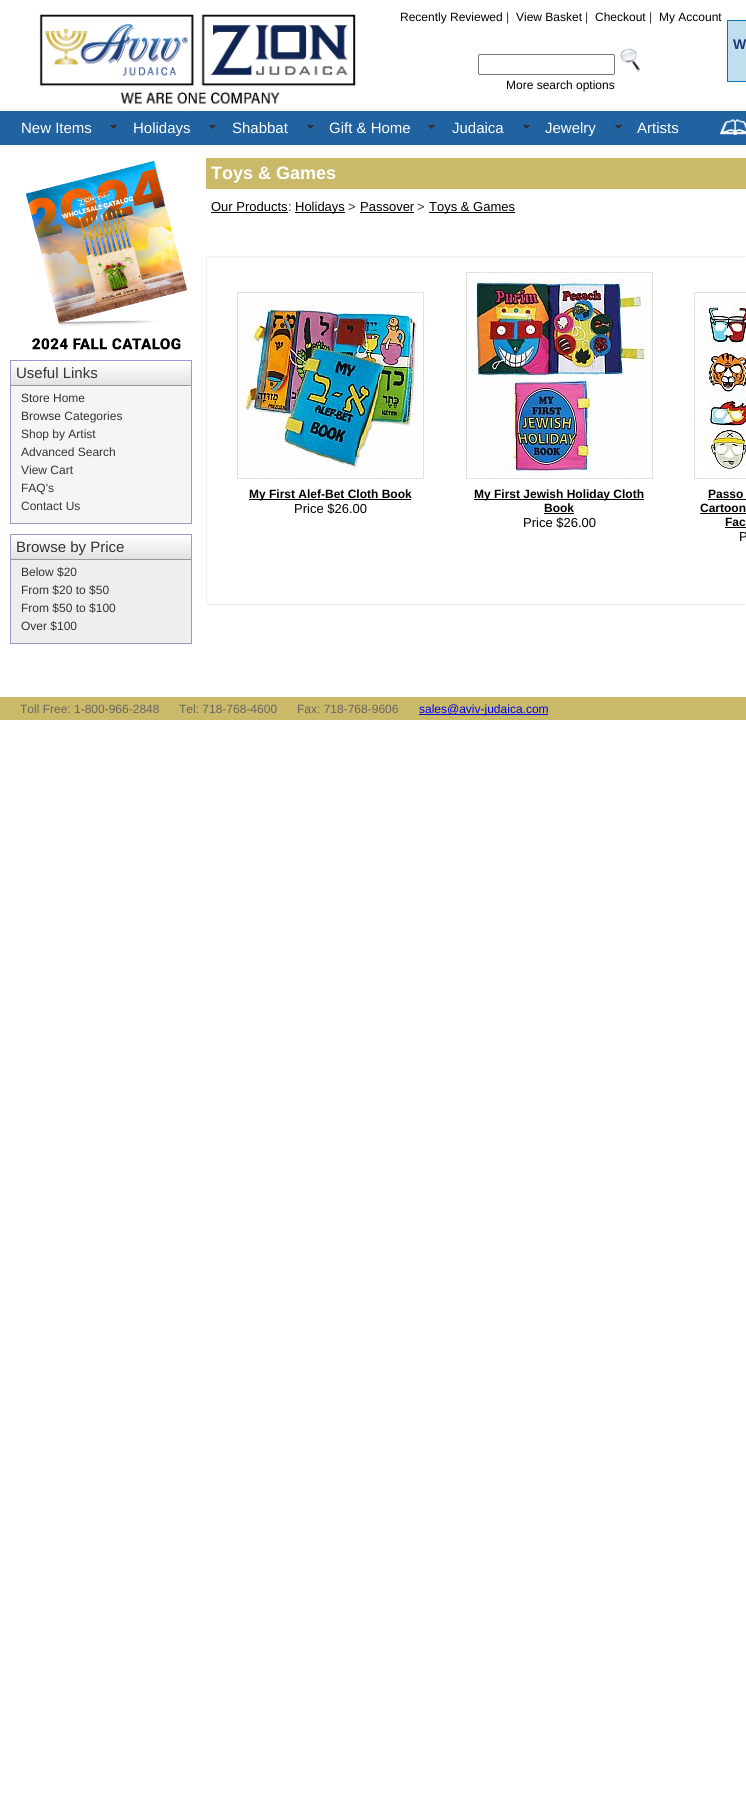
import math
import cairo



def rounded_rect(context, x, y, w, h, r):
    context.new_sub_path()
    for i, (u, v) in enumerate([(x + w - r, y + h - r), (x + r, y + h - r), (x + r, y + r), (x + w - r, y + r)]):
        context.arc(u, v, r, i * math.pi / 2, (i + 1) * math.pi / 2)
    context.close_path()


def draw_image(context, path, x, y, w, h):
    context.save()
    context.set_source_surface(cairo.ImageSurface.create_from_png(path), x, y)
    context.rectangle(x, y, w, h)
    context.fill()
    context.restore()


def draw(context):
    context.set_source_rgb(1, 1, 1)
    context.paint()
    draw_image(context, "images/1.png", 39, 14, 317, 91)
    rounded_rect(context, 478.5, 54.5, 136, 20, 1.5)
    context.set_source_rgb(118 / 255, 118 / 255, 118 / 255)
    context.set_line_width(1)
    context.stroke()
    draw_image(context, "images/2.png", 620, 48, 20, 24)
    context.set_source_rgb(193 / 255, 222 / 255, 238 / 255)
    context.rectangle(727.5, 20.5, 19, 61)
    context.fill_preserve()
    context.set_source_rgb(11 / 255, 116 / 255, 181 / 255)
    context.stroke()
    context.set_source_rgb(33 / 255, 98 / 255, 161 / 255)
    context.rectangle(0, 111, 746, 34)
    context.fill()
    draw_image(context, "images/3.png", 110, 125, 7, 4)
    draw_image(context, "images/3.png", 209, 125, 7, 4)
    draw_image(context, "images/3.png", 307, 125, 7, 4)
    draw_image(context, "images/3.png", 428, 125, 7, 4)
    draw_image(context, "images/3.png", 523, 125, 7, 4)
    draw_image(context, "images/3.png", 615, 125, 7, 4)
    draw_image(context, "images/4.png", 720, 119, 26, 16)
    draw_image(context, "images/5.png", 26, 160, 162, 190)
    context.set_source_rgb(245 / 255, 245 / 255, 245 / 255)
    context.rectangle(11, 386, 180, 137)
    context.fill()
    draw_image(context, "images/6.png", 11, 361, 180, 25)
    context.rectangle(10.5, 360.5, 181, 163)
    context.set_source_rgb(153 / 255, 153 / 255, 204 / 255)
    context.stroke()
    context.set_source_rgb(238 / 255, 238 / 255, 238 / 255)
    context.rectangle(11, 560, 180, 83)
    context.fill()
    draw_image(context, "images/6.png", 11, 535, 180, 25)
    context.rectangle(10.5, 534.5, 181, 109)
    context.set_source_rgb(153 / 255, 153 / 255, 204 / 255)
    context.stroke()
    context.set_source_rgb(201 / 255, 185 / 255, 104 / 255)
    context.rectangle(206, 158, 540, 31)
    context.fill()
    context.set_source_rgb(0, 0, 0)
    context.rectangle(211, 212, 77, 1)
    context.fill()
    context.rectangle(295, 212, 50, 1)
    context.fill()
    context.rectangle(360, 212, 54, 1)
    context.fill()
    context.rectangle(429, 212, 86, 1)
    context.fill()
    context.new_path()
    context.move_to(206, 256.5)
    context.line_to(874, 256.5)
    context.set_source_rgb(225 / 255, 225 / 255, 225 / 255)
    context.set_dash([1, 1])
    context.stroke()
    context.new_path()
    context.move_to(206, 604.5)
    context.line_to(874, 604.5)
    context.stroke()
    context.new_path()
    context.move_to(206.5, 256)
    context.line_to(206.5, 605)
    context.stroke()
    context.rectangle(237.5, 292.5, 186, 186)
    context.set_dash([])
    context.stroke()
    draw_image(context, "images/7.png", 243, 298, 175, 175)
    context.set_source_rgb(0, 0, 0)
    context.rectangle(249, 499, 162, 1)
    context.fill()
    context.rectangle(466.5, 272.5, 186, 206)
    context.set_source_rgb(225 / 255, 225 / 255, 225 / 255)
    context.stroke()
    draw_image(context, "images/8.png", 472, 278, 175, 195)
    context.set_source_rgb(0, 0, 0)
    context.rectangle(474, 499, 170, 1)
    context.fill()
    context.rectangle(544, 513, 30, 1)
    context.fill()
    context.rectangle(694.5, 292.5, 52, 186)
    context.set_source_rgb(225 / 255, 225 / 255, 225 / 255)
    context.stroke()
    draw_image(context, "images/9.png", 700, 298, 46, 175)
    context.set_source_rgb(0, 0, 0)
    context.rectangle(708, 499, 38, 1)
    context.fill()
    context.rectangle(700, 513, 46, 1)
    context.fill()
    context.rectangle(725, 527, 21, 1)
    context.fill()
    context.set_source_rgb(201 / 255, 185 / 255, 104 / 255)
    context.rectangle(0, 697, 746, 23)
    context.fill()
    context.set_source_rgb(0, 0, 238 / 255)
    context.rectangle(419, 714, 129, 1)
    context.fill()
    context.select_font_face("Liberation Sans")
    context.set_font_size(12)
    context.set_source_rgb(0, 0, 0)
    context.move_to(400, 21)
    context.show_text("Recently Reviewed")
    context.set_source_rgb(51 / 255, 51 / 255, 51 / 255)
    context.move_to(506, 21)
    context.show_text("|")
    context.set_source_rgb(0, 0, 0)
    context.move_to(516, 21)
    context.show_text("View Basket")
    context.set_source_rgb(51 / 255, 51 / 255, 51 / 255)
    context.move_to(585, 21)
    context.show_text("|")
    context.set_source_rgb(0, 0, 0)
    context.move_to(595, 21)
    context.show_text("Checkout")
    context.set_source_rgb(51 / 255, 51 / 255, 51 / 255)
    context.move_to(649, 21)
    context.show_text("|")
    context.set_source_rgb(0, 0, 0)
    context.move_to(659, 21)
    context.show_text("My Account")
    context.move_to(506, 89)
    context.show_text("More search options")
    context.select_font_face("Liberation Sans", cairo.FontSlant.NORMAL, cairo.FontWeight.BOLD)
    context.set_font_size(14)
    context.set_source_rgb(34 / 255, 54 / 255, 115 / 255)
    context.move_to(733, 49)
    context.show_text("W")
    context.select_font_face("Liberation Sans")
    context.set_font_size(15)
    context.set_source_rgb(1, 1, 1)
    context.move_to(21, 133)
    context.show_text("New Items")
    context.move_to(133, 133)
    context.show_text("Holidays")
    context.move_to(232, 133)
    context.show_text("Shabbat")
    context.move_to(329, 133)
    context.show_text("Gift & Home")
    context.move_to(452, 133)
    context.show_text("Judaica")
    context.move_to(545, 133)
    context.show_text("Jewelry")
    context.move_to(637, 133)
    context.show_text("Artists")
    context.set_source_rgb(51 / 255, 51 / 255, 51 / 255)
    context.move_to(16, 378)
    context.show_text("Useful Links")
    context.set_font_size(12)
    context.move_to(21, 402)
    context.show_text("Store Home")
    context.move_to(21, 420)
    context.show_text("Browse Categories")
    context.move_to(21, 438)
    context.show_text("Shop by Artist")
    context.move_to(21, 456)
    context.show_text("Advanced Search")
    context.move_to(21, 474)
    context.show_text("View Cart")
    context.move_to(21, 492)
    context.show_text("FAQ's")
    context.move_to(21, 510)
    context.show_text("Contact Us")
    context.set_font_size(15)
    context.move_to(16, 552)
    context.show_text("Browse by Price")
    context.set_font_size(12)
    context.move_to(21, 576)
    context.show_text("Below $20")
    context.move_to(21, 594)
    context.show_text("From $20 to $50")
    context.move_to(21, 612)
    context.show_text("From $50 to $100")
    context.move_to(21, 630)
    context.show_text("Over $100")
    context.select_font_face("Liberation Sans", cairo.FontSlant.NORMAL, cairo.FontWeight.BOLD)
    context.set_font_size(18)
    context.set_source_rgb(1, 1, 1)
    context.move_to(211, 179)
    context.show_text("Toys & Games")
    context.select_font_face("Liberation Sans")
    context.set_font_size(13)
    context.set_source_rgb(0, 0, 0)
    context.move_to(211, 211)
    context.show_text("Our Products")
    context.set_source_rgb(51 / 255, 51 / 255, 51 / 255)
    context.move_to(288, 211)
    context.show_text(":")
    context.set_source_rgb(0, 0, 0)
    context.move_to(295, 211)
    context.show_text("Holidays")
    context.set_source_rgb(51 / 255, 51 / 255, 51 / 255)
    context.move_to(348, 211)
    context.show_text(">")
    context.set_source_rgb(0, 0, 0)
    context.move_to(360, 211)
    context.show_text("Passover")
    context.set_source_rgb(51 / 255, 51 / 255, 51 / 255)
    context.move_to(417, 211)
    context.show_text(">")
    context.set_source_rgb(0, 0, 0)
    context.move_to(429, 211)
    context.show_text("Toys & Games")
    context.select_font_face("Liberation Sans", cairo.FontSlant.NORMAL, cairo.FontWeight.BOLD)
    context.set_font_size(12)
    context.move_to(249, 498)
    context.show_text("My First Alef-Bet Cloth Book")
    context.select_font_face("Liberation Sans")
    context.set_font_size(13)
    context.move_to(294, 513)
    context.show_text("Price $26.00")
    context.select_font_face("Liberation Sans", cairo.FontSlant.NORMAL, cairo.FontWeight.BOLD)
    context.set_font_size(12)
    context.move_to(474, 498)
    context.show_text("My First Jewish Holiday Cloth")
    context.move_to(544, 512)
    context.show_text("Book")
    context.select_font_face("Liberation Sans")
    context.set_font_size(13)
    context.move_to(523, 527)
    context.show_text("Price $26.00")
    context.select_font_face("Liberation Sans", cairo.FontSlant.NORMAL, cairo.FontWeight.BOLD)
    context.set_font_size(12)
    context.move_to(708, 498)
    context.show_text("Passo")
    context.move_to(700, 512)
    context.show_text("Cartoon")
    context.move_to(725, 526)
    context.show_text("Fac")
    context.select_font_face("Liberation Sans")
    context.set_font_size(13)
    context.move_to(739, 541)
    context.show_text("P")
    context.set_font_size(12)
    context.set_source_rgb(102 / 255, 102 / 255, 102 / 255)
    context.move_to(20, 713)
    context.show_text("Toll Free: 1-800-966-2848")
    context.move_to(179, 713)
    context.show_text("Tel: 718-768-4600")
    context.move_to(297, 713)
    context.show_text("Fax: 718-768-9606")
    context.set_source_rgb(0, 0, 238 / 255)
    context.move_to(419, 713)
    context.show_text("sales@aviv-judaica.com")


surface = cairo.ImageSurface(cairo.Format.RGB24, 746, 1798)
context = cairo.Context(surface)
options = cairo.FontOptions()
options.set_hint_metrics(cairo.HintMetrics.OFF)
options.set_hint_style(cairo.HintStyle.NONE)
context.set_font_options(options)
context.set_miter_limit(4)
draw(context)
surface.write_to_png("out.png")
